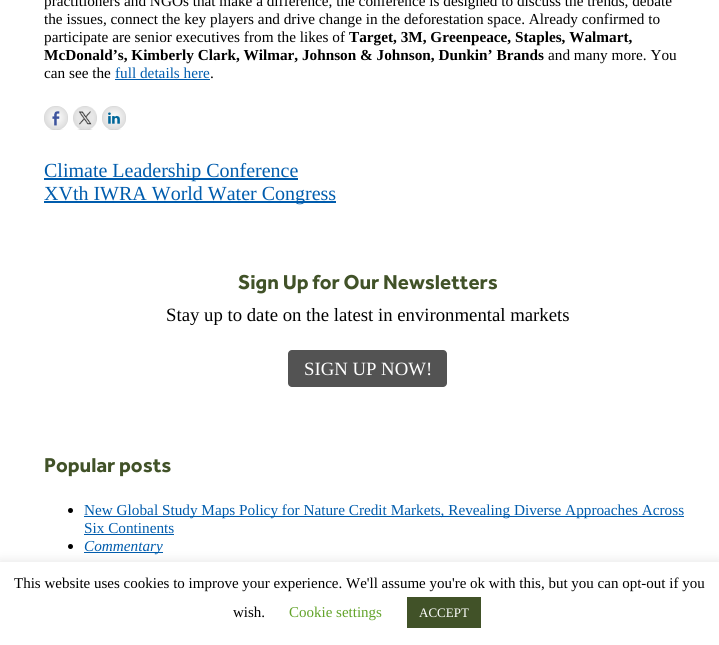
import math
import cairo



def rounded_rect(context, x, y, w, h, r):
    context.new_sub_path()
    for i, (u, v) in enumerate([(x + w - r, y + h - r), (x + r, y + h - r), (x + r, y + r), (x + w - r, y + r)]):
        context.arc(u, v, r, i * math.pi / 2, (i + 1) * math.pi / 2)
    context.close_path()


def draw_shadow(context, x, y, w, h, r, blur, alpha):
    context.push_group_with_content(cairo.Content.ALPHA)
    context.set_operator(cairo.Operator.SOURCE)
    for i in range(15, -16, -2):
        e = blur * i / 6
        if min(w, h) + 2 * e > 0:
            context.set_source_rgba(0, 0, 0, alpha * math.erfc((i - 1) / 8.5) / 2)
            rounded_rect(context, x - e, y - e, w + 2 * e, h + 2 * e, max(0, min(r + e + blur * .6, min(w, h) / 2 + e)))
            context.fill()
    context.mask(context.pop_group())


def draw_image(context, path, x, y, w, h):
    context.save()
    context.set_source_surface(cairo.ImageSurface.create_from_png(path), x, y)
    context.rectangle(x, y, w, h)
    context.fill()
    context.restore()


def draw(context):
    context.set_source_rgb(1, 1, 1)
    context.paint()
    context.set_source_rgb(0, 92 / 255, 173 / 255)
    context.rectangle(115, 79, 95, 1)
    context.fill()
    draw_image(context, "images/1.png", 44, 106, 24, 24)
    draw_image(context, "images/2.png", 73, 106, 24, 24)
    draw_image(context, "images/3.png", 102, 106, 24, 24)
    context.rectangle(44, 178, 254, 2)
    context.fill()
    context.rectangle(44, 201, 292, 2)
    context.fill()
    context.set_source_rgb(83 / 255, 83 / 255, 83 / 255)
    rounded_rect(context, 288, 350, 159, 37, 4)
    context.fill()
    context.set_source_rgb(0, 0, 0)
    context.arc(70.5, 510.5, 2.5, 0, 2 * math.pi)
    context.fill()
    context.set_source_rgb(0, 92 / 255, 173 / 255)
    context.rectangle(84, 516, 600, 1)
    context.fill()
    context.rectangle(84, 534, 90, 1)
    context.fill()
    context.set_source_rgb(0, 0, 0)
    context.arc(70.5, 546.5, 2.5, 0, 2 * math.pi)
    context.fill()
    context.set_source_rgb(0, 92 / 255, 173 / 255)
    context.rectangle(84, 552, 79, 1)
    context.fill()
    context.set_source_rgb(172 / 255, 171 / 255, 171 / 255)
    draw_shadow(context, 0, 561, 719, 83, 0, 5, 0.3)
    context.set_source_rgb(1, 1, 1)
    context.rectangle(0, 562, 719, 83)
    context.fill()
    context.set_source_rgb(65 / 255, 82 / 255, 40 / 255)
    context.rectangle(407, 597, 74, 31)
    context.fill()
    context.select_font_face("Liberation Serif")
    context.set_font_size(15.25)
    context.set_source_rgb(0, 0, 0)
    context.move_to(44, 6)
    context.show_text("practitioners and NGOs that make a difference, the conference is designed to discuss the trends, debate")
    context.move_to(44, 24)
    context.show_text("the issues, connect the key players and drive change in the deforestation space. Already confirmed to")
    context.move_to(44, 42)
    context.show_text("participate are senior executives from the likes of")
    context.select_font_face("Liberation Serif", cairo.FontSlant.NORMAL, cairo.FontWeight.BOLD)
    context.move_to(349, 42)
    context.show_text("Target, 3M, Greenpeace, Staples, Walmart,")
    context.move_to(44, 60)
    context.show_text("McDonald’s, Kimberly Clark, Wilmar, Johnson & Johnson, Dunkin’ Brands")
    context.select_font_face("Liberation Serif")
    context.move_to(548, 60)
    context.show_text("and many more. You")
    context.move_to(44, 78)
    context.show_text("can see the")
    context.set_source_rgb(0, 92 / 255, 173 / 255)
    context.move_to(115, 78)
    context.show_text("full details here")
    context.set_source_rgb(0, 0, 0)
    context.move_to(210, 78)
    context.show_text(".")
    context.set_font_size(20)
    context.set_source_rgb(0, 92 / 255, 173 / 255)
    context.move_to(44, 177)
    context.show_text("Climate Leadership Conference")
    context.move_to(44, 200)
    context.show_text("XVth IWRA World Water Congress")
    context.select_font_face("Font", cairo.FontSlant.NORMAL, cairo.FontWeight.BOLD)
    context.set_font_size(20.75)
    context.set_source_rgb(65 / 255, 82 / 255, 40 / 255)
    context.move_to(238, 289)
    context.show_text("Sign Up for Our Newsletters")
    context.select_font_face("Liberation Serif")
    context.set_font_size(18.75)
    context.set_source_rgb(0, 0, 0)
    context.move_to(166, 321)
    context.show_text("Stay up to date on the latest in environmental markets")
    context.set_source_rgb(1, 1, 1)
    context.move_to(304, 375)
    context.show_text("SIGN UP NOW!")
    context.select_font_face("Font", cairo.FontSlant.NORMAL, cairo.FontWeight.BOLD)
    context.set_font_size(20.75)
    context.set_source_rgb(65 / 255, 82 / 255, 40 / 255)
    context.move_to(44, 472)
    context.show_text("Popular posts")
    context.select_font_face("Liberation Serif")
    context.set_font_size(15.25)
    context.set_source_rgb(0, 92 / 255, 173 / 255)
    context.move_to(84, 515)
    context.show_text("New Global Study Maps Policy for Nature Credit Markets, Revealing Diverse Approaches Across")
    context.move_to(84, 533)
    context.show_text("Six Continents")
    context.select_font_face("Liberation Serif", cairo.FontSlant.ITALIC)
    context.move_to(84, 551)
    context.show_text("Commentary")
    context.select_font_face("Liberation Serif")
    context.set_font_size(15)
    context.set_source_rgb(0, 0, 0)
    context.move_to(14, 588)
    context.show_text("This website uses cookies to improve your experience. We'll assume you're ok with this, but you can opt-out if you")
    context.move_to(233, 617)
    context.show_text("wish.")
    context.set_source_rgb(98 / 255, 163 / 255, 41 / 255)
    context.move_to(289, 617)
    context.show_text("Cookie settings")
    context.set_font_size(13)
    context.set_source_rgb(1, 1, 1)
    context.move_to(419, 617)
    context.show_text("ACCEPT")


surface = cairo.ImageSurface(cairo.Format.RGB24, 719, 645)
context = cairo.Context(surface)
options = cairo.FontOptions()
options.set_hint_metrics(cairo.HintMetrics.OFF)
options.set_hint_style(cairo.HintStyle.NONE)
context.set_font_options(options)
context.set_miter_limit(4)
draw(context)
surface.write_to_png("out.png")
